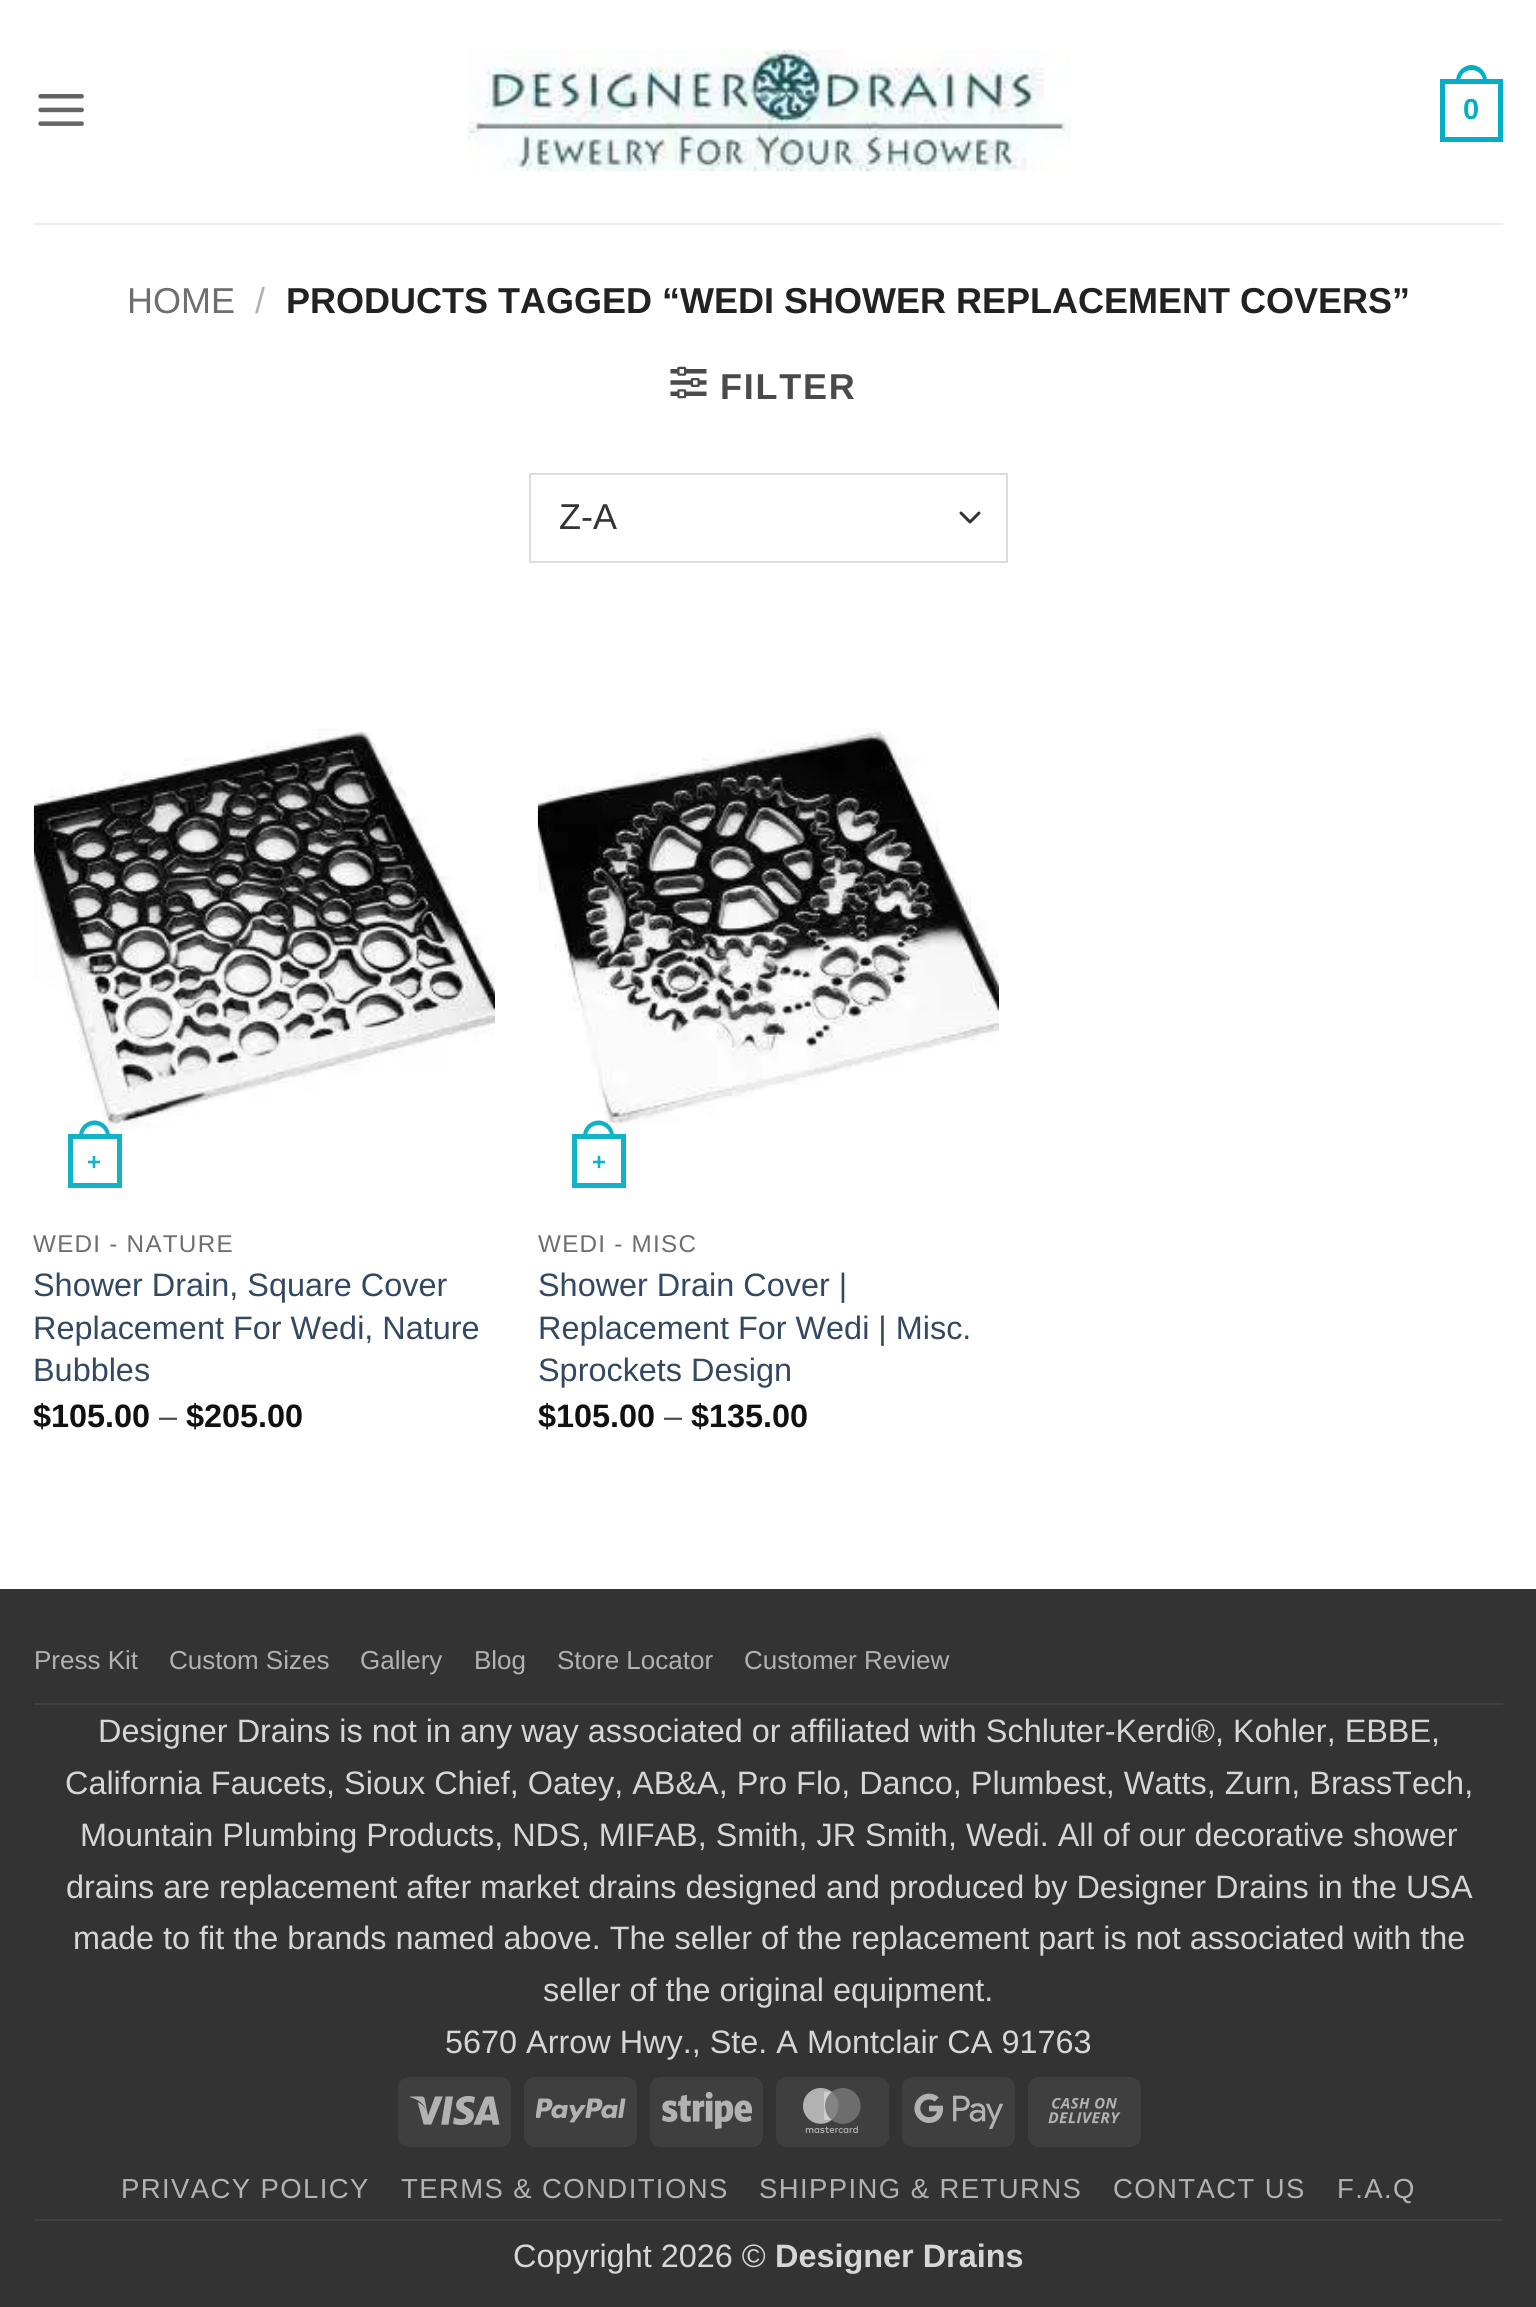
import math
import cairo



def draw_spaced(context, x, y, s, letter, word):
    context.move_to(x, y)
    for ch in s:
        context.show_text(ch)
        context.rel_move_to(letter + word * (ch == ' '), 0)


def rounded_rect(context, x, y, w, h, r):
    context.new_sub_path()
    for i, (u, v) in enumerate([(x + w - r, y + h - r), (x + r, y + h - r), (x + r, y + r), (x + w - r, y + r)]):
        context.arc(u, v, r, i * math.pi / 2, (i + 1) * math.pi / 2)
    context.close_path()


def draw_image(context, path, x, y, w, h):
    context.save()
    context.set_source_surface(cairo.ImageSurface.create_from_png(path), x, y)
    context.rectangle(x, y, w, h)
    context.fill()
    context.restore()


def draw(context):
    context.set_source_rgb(1, 1, 1)
    context.paint()
    draw_image(context, "images/1.png", 38, 94, 46, 32)
    draw_image(context, "images/2.png", 468, 49, 603, 123)
    context.rectangle(1442.5, 81.5, 58, 58)
    context.set_source_rgb(5 / 255, 174 / 255, 196 / 255)
    context.set_line_width(5)
    context.stroke()
    context.set_fill_rule(cairo.FillRule.EVEN_ODD)
    context.new_path()
    context.move_to(1471.5, 65)
    context.curve_to(1480, 65, 1487, 72.5, 1487, 81)
    context.line_to(1487, 83)
    context.line_to(1456, 83)
    context.line_to(1456, 81)
    context.curve_to(1456, 72.5, 1463, 65, 1471.5, 65)
    context.close_path()
    context.move_to(1471.5, 70)
    context.curve_to(1477.5, 70, 1483, 75, 1483, 81)
    context.line_to(1483, 83)
    context.line_to(1460, 83)
    context.line_to(1460, 81)
    context.curve_to(1460, 75, 1465.5, 70, 1471.5, 70)
    context.close_path()
    context.fill()
    context.set_source_rgb(237 / 255, 237 / 255, 237 / 255)
    context.rectangle(34, 223, 1469, 2)
    context.fill()
    draw_image(context, "images/3.png", 670, 366, 37, 33)
    context.new_path()
    context.move_to(961, 513)
    context.line_to(970, 522)
    context.line_to(979, 513)
    context.set_source_rgb(51 / 255, 51 / 255, 51 / 255)
    context.set_line_width(3)
    context.set_line_cap(cairo.LineCap.ROUND)
    context.set_line_join(cairo.LineJoin.ROUND)
    context.stroke()
    context.rectangle(530, 474, 477, 88)
    context.set_source_rgb(221 / 255, 221 / 255, 221 / 255)
    context.set_line_width(2)
    context.set_line_cap(cairo.LineCap.BUTT)
    context.set_line_join(cairo.LineJoin.MITER)
    context.stroke()
    draw_image(context, "images/4.png", 33, 728, 462, 401)
    context.rectangle(70.5, 1136.5, 49, 49)
    context.set_source_rgb(18 / 255, 178 / 255, 199 / 255)
    context.set_line_width(5)
    context.stroke()
    context.set_source_rgb(17 / 255, 178 / 255, 199 / 255)
    context.new_path()
    context.move_to(94.5, 1120.5)
    context.curve_to(103, 1120.5, 110, 1127.5, 110, 1136)
    context.line_to(110, 1138.5)
    context.line_to(79, 1138.5)
    context.line_to(79, 1136)
    context.curve_to(79, 1127.5, 86, 1120.5, 94.5, 1120.5)
    context.close_path()
    context.move_to(94.5, 1125)
    context.curve_to(100.5, 1125, 106, 1130, 106, 1136)
    context.line_to(106, 1138.5)
    context.line_to(83, 1138.5)
    context.line_to(83, 1136)
    context.curve_to(83, 1130, 88.5, 1125, 94.5, 1125)
    context.close_path()
    context.fill()
    draw_image(context, "images/5.png", 537, 728, 462, 397)
    context.rectangle(574.5, 1136.5, 49, 49)
    context.set_source_rgb(18 / 255, 178 / 255, 199 / 255)
    context.stroke()
    context.set_source_rgb(17 / 255, 178 / 255, 199 / 255)
    context.new_path()
    context.move_to(598.5, 1120.5)
    context.curve_to(607, 1120.5, 614, 1127.5, 614, 1136)
    context.line_to(614, 1138.5)
    context.line_to(583, 1138.5)
    context.line_to(583, 1136)
    context.curve_to(583, 1127.5, 590, 1120.5, 598.5, 1120.5)
    context.close_path()
    context.move_to(598.5, 1125)
    context.curve_to(604.5, 1125, 610, 1130, 610, 1136)
    context.line_to(610, 1138.5)
    context.line_to(587, 1138.5)
    context.line_to(587, 1136)
    context.curve_to(587, 1130, 592.5, 1125, 598.5, 1125)
    context.close_path()
    context.fill()
    context.set_source_rgb(51 / 255, 51 / 255, 51 / 255)
    context.rectangle(0, 1589, 1536, 718)
    context.fill()
    context.set_source_rgb(64 / 255, 64 / 255, 64 / 255)
    context.rectangle(34, 1703, 1469, 2)
    context.fill()
    context.set_source_rgb(63 / 255, 63 / 255, 63 / 255)
    rounded_rect(context, 398, 2077, 113, 70, 11)
    context.fill()
    draw_image(context, "images/6.png", 410, 2096, 90, 29)
    rounded_rect(context, 524, 2077, 113, 70, 11)
    context.fill()
    draw_image(context, "images/7.png", 536, 2098, 90, 25)
    rounded_rect(context, 650, 2077, 113, 70, 11)
    context.fill()
    draw_image(context, "images/8.png", 662, 2091, 90, 39)
    rounded_rect(context, 776, 2077, 113, 70, 11)
    context.fill()
    draw_image(context, "images/9.png", 803, 2088, 58, 45)
    rounded_rect(context, 902, 2077, 113, 70, 11)
    context.fill()
    draw_image(context, "images/10.png", 914, 2093, 90, 36)
    rounded_rect(context, 1028, 2077, 113, 70, 11)
    context.fill()
    draw_image(context, "images/11.png", 1048, 2097, 73, 27)
    context.set_source_rgb(64 / 255, 64 / 255, 64 / 255)
    context.rectangle(34, 2219, 1469, 2)
    context.fill()
    context.select_font_face("Liberation Sans", cairo.FontSlant.NORMAL, cairo.FontWeight.BOLD)
    context.set_font_size(29)
    context.set_source_rgb(5 / 255, 174 / 255, 196 / 255)
    context.move_to(1463, 119)
    context.show_text("0")
    context.select_font_face("Liberation Sans")
    context.set_font_size(36)
    context.set_source_rgb(110 / 255, 110 / 255, 110 / 255)
    context.move_to(127, 313)
    context.show_text("HOME")
    context.set_source_rgb(178 / 255, 178 / 255, 178 / 255)
    context.move_to(255, 313)
    context.show_text("/")
    context.select_font_face("Liberation Sans", cairo.FontSlant.NORMAL, cairo.FontWeight.BOLD)
    context.set_source_rgb(34 / 255, 34 / 255, 34 / 255)
    context.move_to(286, 313)
    context.show_text("PRODUCTS TAGGED “WEDI SHOWER REPLACEMENT COVERS”")
    context.set_source_rgb(74 / 255, 74 / 255, 74 / 255)
    draw_spaced(context, 720, 399, "FILTER", 1.75, 0)
    context.select_font_face("Liberation Sans")
    context.set_source_rgb(51 / 255, 51 / 255, 51 / 255)
    context.move_to(559, 529)
    context.show_text("Z-A")
    context.select_font_face("Liberation Sans", cairo.FontSlant.NORMAL, cairo.FontWeight.BOLD)
    context.set_font_size(24)
    context.set_source_rgb(18 / 255, 178 / 255, 199 / 255)
    context.move_to(87, 1170)
    context.show_text("+")
    context.select_font_face("Liberation Sans")
    context.set_font_size(24.25)
    context.set_source_rgb(110 / 255, 110 / 255, 110 / 255)
    draw_spaced(context, 33, 1252, "WEDI - NATURE", 1.25, 0)
    context.set_font_size(32.4)
    context.set_source_rgb(51 / 255, 72 / 255, 98 / 255)
    context.move_to(33, 1296)
    context.show_text("Shower Drain, Square Cover")
    context.move_to(33, 1339)
    context.show_text("Replacement For Wedi, Nature")
    context.move_to(33, 1381)
    context.show_text("Bubbles")
    context.select_font_face("Liberation Sans", cairo.FontSlant.NORMAL, cairo.FontWeight.BOLD)
    context.set_source_rgb(17 / 255, 17 / 255, 17 / 255)
    context.move_to(33, 1427)
    context.show_text("$105.00")
    context.select_font_face("Liberation Sans")
    context.set_source_rgb(74 / 255, 74 / 255, 74 / 255)
    context.move_to(159, 1427)
    context.show_text("–")
    context.select_font_face("Liberation Sans", cairo.FontSlant.NORMAL, cairo.FontWeight.BOLD)
    context.set_source_rgb(17 / 255, 17 / 255, 17 / 255)
    context.move_to(186, 1427)
    context.show_text("$205.00")
    context.set_font_size(24)
    context.set_source_rgb(18 / 255, 178 / 255, 199 / 255)
    context.move_to(592, 1170)
    context.show_text("+")
    context.select_font_face("Liberation Sans")
    context.set_font_size(24.25)
    context.set_source_rgb(110 / 255, 110 / 255, 110 / 255)
    draw_spaced(context, 538, 1252, "WEDI - MISC", 1.25, 0)
    context.set_font_size(32.4)
    context.set_source_rgb(51 / 255, 72 / 255, 98 / 255)
    context.move_to(538, 1296)
    context.show_text("Shower Drain Cover |")
    context.move_to(538, 1339)
    context.show_text("Replacement For Wedi | Misc.")
    context.move_to(538, 1381)
    context.show_text("Sprockets Design")
    context.select_font_face("Liberation Sans", cairo.FontSlant.NORMAL, cairo.FontWeight.BOLD)
    context.set_source_rgb(17 / 255, 17 / 255, 17 / 255)
    context.move_to(538, 1427)
    context.show_text("$105.00")
    context.select_font_face("Liberation Sans")
    context.set_source_rgb(74 / 255, 74 / 255, 74 / 255)
    context.move_to(664, 1427)
    context.show_text("–")
    context.select_font_face("Liberation Sans", cairo.FontSlant.NORMAL, cairo.FontWeight.BOLD)
    context.set_source_rgb(17 / 255, 17 / 255, 17 / 255)
    context.move_to(691, 1427)
    context.show_text("$135.00")
    context.select_font_face("Liberation Sans")
    context.set_font_size(26)
    context.set_source_rgb(178 / 255, 178 / 255, 178 / 255)
    context.move_to(34, 1669)
    context.show_text("Press Kit")
    context.move_to(169, 1669)
    context.show_text("Custom Sizes")
    context.move_to(360, 1669)
    context.show_text("Gallery")
    context.move_to(474, 1669)
    context.show_text("Blog")
    context.move_to(557, 1669)
    context.show_text("Store Locator")
    context.move_to(744, 1669)
    context.show_text("Customer Review")
    context.set_font_size(32.4)
    context.set_source_rgb(214 / 255, 214 / 255, 214 / 255)
    context.move_to(98, 1742)
    context.show_text("Designer Drains is not in any way associated or affiliated with Schluter-Kerdi®, Kohler, EBBE,")
    context.move_to(65, 1794)
    context.show_text("California Faucets, Sioux Chief, Oatey, AB&A, Pro Flo, Danco, Plumbest, Watts, Zurn, BrassTech,")
    context.move_to(80, 1846)
    context.show_text("Mountain Plumbing Products, NDS, MIFAB, Smith, JR Smith, Wedi. All of our decorative shower")
    context.move_to(66, 1898)
    context.show_text("drains are replacement after market drains designed and produced by Designer Drains in the USA")
    context.move_to(73, 1949)
    context.show_text("made to fit the brands named above. The seller of the replacement part is not associated with the")
    context.move_to(543, 2001)
    context.show_text("seller of the original equipment.")
    context.move_to(445, 2053)
    context.show_text("5670 Arrow Hwy., Ste. A Montclair CA 91763")
    context.set_font_size(27.5)
    context.set_source_rgb(178 / 255, 178 / 255, 178 / 255)
    draw_spaced(context, 121, 2198, "PRIVACY POLICY", 1.4, 0)
    draw_spaced(context, 401, 2198, "TERMS & CONDITIONS", 1.4, 0)
    draw_spaced(context, 759, 2198, "SHIPPING & RETURNS", 1.4, 0)
    draw_spaced(context, 1113, 2198, "CONTACT US", 1.4, 0)
    draw_spaced(context, 1337, 2198, "F.A.Q", 1.4, 0)
    context.set_font_size(32.4)
    context.set_source_rgb(214 / 255, 214 / 255, 214 / 255)
    context.move_to(513, 2267)
    context.show_text("Copyright 2026 ©")
    context.select_font_face("Liberation Sans", cairo.FontSlant.NORMAL, cairo.FontWeight.BOLD)
    context.move_to(775, 2267)
    context.show_text("Designer Drains")


surface = cairo.ImageSurface(cairo.Format.RGB24, 1536, 2307)
context = cairo.Context(surface)
options = cairo.FontOptions()
options.set_hint_metrics(cairo.HintMetrics.OFF)
options.set_hint_style(cairo.HintStyle.NONE)
context.set_font_options(options)
context.set_miter_limit(4)
draw(context)
surface.write_to_png("out.png")
